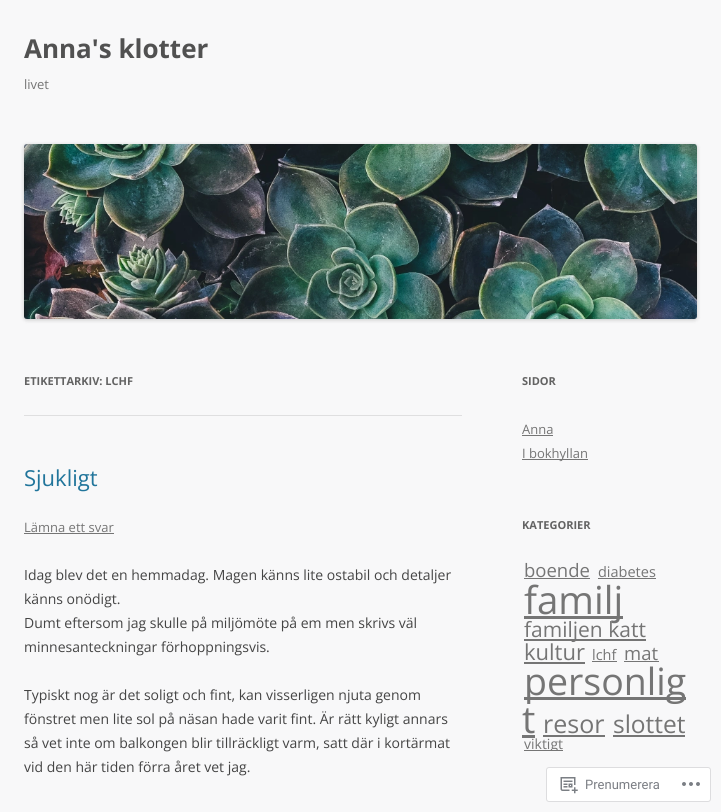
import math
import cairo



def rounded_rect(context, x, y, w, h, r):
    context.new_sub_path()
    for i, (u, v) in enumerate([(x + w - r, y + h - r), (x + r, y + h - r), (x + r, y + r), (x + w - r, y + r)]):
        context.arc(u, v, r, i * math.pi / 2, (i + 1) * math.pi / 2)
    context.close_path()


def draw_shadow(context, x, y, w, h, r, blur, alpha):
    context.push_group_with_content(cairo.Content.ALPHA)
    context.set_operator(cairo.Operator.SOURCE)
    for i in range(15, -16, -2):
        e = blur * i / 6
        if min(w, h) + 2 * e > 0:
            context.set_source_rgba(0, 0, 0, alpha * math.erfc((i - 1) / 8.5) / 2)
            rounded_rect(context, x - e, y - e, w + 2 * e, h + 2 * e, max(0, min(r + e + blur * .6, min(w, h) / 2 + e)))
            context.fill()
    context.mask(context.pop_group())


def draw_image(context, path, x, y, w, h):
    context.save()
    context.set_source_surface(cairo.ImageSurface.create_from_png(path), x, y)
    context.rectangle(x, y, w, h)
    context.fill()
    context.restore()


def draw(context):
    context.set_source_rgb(248 / 255, 248 / 255, 249 / 255)
    context.paint()
    context.set_source_rgb(0, 0, 0)
    draw_shadow(context, 24, 145, 673, 175, 3, 2, 0.2)
    draw_image(context, "images/1.png", 24, 144, 673, 175)
    context.set_source_rgb(223 / 255, 223 / 255, 224 / 255)
    context.rectangle(24, 415, 438, 1)
    context.fill()
    context.set_source_rgb(117 / 255, 117 / 255, 117 / 255)
    context.rectangle(24, 533, 90, 1)
    context.fill()
    context.rectangle(522, 435, 31, 1)
    context.fill()
    context.rectangle(522, 459, 66, 1)
    context.fill()
    context.rectangle(524, 578, 66, 1)
    context.fill()
    context.rectangle(598, 578, 58, 1)
    context.fill()
    context.rectangle(524, 616, 99, 3)
    context.fill()
    context.rectangle(524, 639, 122, 2)
    context.fill()
    context.rectangle(524, 662, 61, 2)
    context.fill()
    context.rectangle(592, 661, 25, 1)
    context.fill()
    context.rectangle(624, 661, 35, 1)
    context.fill()
    context.rectangle(524, 697, 162, 3)
    context.fill()
    context.rectangle(522, 735, 13, 3)
    context.fill()
    context.rectangle(543, 735, 62, 2)
    context.fill()
    context.rectangle(613, 735, 72, 2)
    context.fill()
    context.rectangle(524, 750, 39, 1)
    context.fill()
    context.set_source_rgb(1, 1, 1)
    rounded_rect(context, 546.5, 767.5, 164, 34, 2.5)
    context.fill_preserve()
    context.set_source_rgb(221 / 255, 221 / 255, 223 / 255)
    context.set_line_width(1)
    context.stroke()
    draw_image(context, "images/2.png", 560, 777, 18, 17)
    draw_image(context, "images/3.png", 682, 782, 18, 4)
    context.select_font_face("Open Sans", cairo.FontSlant.NORMAL, cairo.FontWeight.BOLD)
    context.set_font_size(26)
    context.set_source_rgb(81 / 255, 81 / 255, 81 / 255)
    context.move_to(24, 58)
    context.show_text("Anna's klotter")
    context.select_font_face("Open Sans")
    context.set_font_size(13)
    context.set_source_rgb(117 / 255, 117 / 255, 117 / 255)
    context.move_to(24, 89)
    context.show_text("livet")
    context.select_font_face("Open Sans", cairo.FontSlant.NORMAL, cairo.FontWeight.BOLD)
    context.set_font_size(11)
    context.set_source_rgb(99 / 255, 99 / 255, 99 / 255)
    context.move_to(24, 385)
    context.show_text("ETIKETTARKIV: LCHF")
    context.select_font_face("Open Sans")
    context.set_font_size(22)
    context.set_source_rgb(33 / 255, 117 / 255, 155 / 255)
    context.move_to(24, 486)
    context.show_text("Sjukligt")
    context.set_font_size(13)
    context.set_source_rgb(117 / 255, 117 / 255, 117 / 255)
    context.move_to(24, 532)
    context.show_text("Lämna ett svar")
    context.set_font_size(14)
    context.set_source_rgb(68 / 255, 68 / 255, 68 / 255)
    context.move_to(24, 580)
    context.show_text("Idag blev det en hemmadag. Magen känns lite ostabil och detaljer")
    context.move_to(24, 604)
    context.show_text("känns onödigt.")
    context.move_to(24, 628)
    context.show_text("Dumt eftersom jag skulle på miljömöte på em men skrivs väl")
    context.move_to(24, 652)
    context.show_text("minnesanteckningar förhoppningsvis.")
    context.move_to(24, 700)
    context.show_text("Typiskt nog är det soligt och fint, kan visserligen njuta genom")
    context.move_to(24, 724)
    context.show_text("fönstret men lite sol på näsan hade varit fint. Är rätt kyligt annars")
    context.move_to(24, 748)
    context.show_text("så vet inte om balkongen blir tillräckligt varm, satt där i kortärmat")
    context.move_to(24, 772)
    context.show_text("vid den här tiden förra året vet jag.")
    context.select_font_face("Open Sans", cairo.FontSlant.NORMAL, cairo.FontWeight.BOLD)
    context.set_font_size(11)
    context.set_source_rgb(99 / 255, 99 / 255, 99 / 255)
    context.move_to(522, 385)
    context.show_text("SIDOR")
    context.select_font_face("Open Sans")
    context.set_font_size(13)
    context.set_source_rgb(117 / 255, 117 / 255, 117 / 255)
    context.move_to(522, 434)
    context.show_text("Anna")
    context.move_to(522, 458)
    context.show_text("I bokhyllan")
    context.select_font_face("Open Sans", cairo.FontSlant.NORMAL, cairo.FontWeight.BOLD)
    context.set_font_size(11)
    context.set_source_rgb(99 / 255, 99 / 255, 99 / 255)
    context.move_to(522, 529)
    context.show_text("KATEGORIER")
    context.select_font_face("Open Sans")
    context.set_font_size(18.5)
    context.set_source_rgb(117 / 255, 117 / 255, 117 / 255)
    context.move_to(524, 577)
    context.show_text("boende")
    context.set_font_size(14.5)
    context.move_to(598, 577)
    context.show_text("diabetes")
    context.set_font_size(38.5)
    context.move_to(524, 614)
    context.show_text("familj")
    context.set_font_size(21)
    context.move_to(524, 637)
    context.show_text("familjen katt")
    context.set_font_size(22)
    context.move_to(524, 660)
    context.show_text("kultur")
    context.set_font_size(14.5)
    context.move_to(592, 660)
    context.show_text("lchf")
    context.set_font_size(18.5)
    context.move_to(624, 660)
    context.show_text("mat")
    context.set_font_size(37.5)
    context.move_to(524, 695)
    context.show_text("personlig")
    context.move_to(522, 733)
    context.show_text("t")
    context.set_font_size(25)
    context.move_to(543, 733)
    context.show_text("resor")
    context.set_font_size(24.5)
    context.move_to(613, 733)
    context.show_text("slottet")
    context.save()
    context.rectangle(522, 561, 175, 190)
    context.clip()
    context.set_font_size(14)
    context.move_to(524, 749)
    context.show_text("viktigt")
    context.restore()
    context.select_font_face("Roboto")
    context.set_font_size(13)
    context.set_source_rgb(123 / 255, 126 / 255, 132 / 255)
    context.move_to(585, 789)
    context.show_text("Prenumerera")


surface = cairo.ImageSurface(cairo.Format.RGB24, 721, 812)
context = cairo.Context(surface)
options = cairo.FontOptions()
options.set_hint_metrics(cairo.HintMetrics.OFF)
options.set_hint_style(cairo.HintStyle.NONE)
context.set_font_options(options)
context.set_miter_limit(4)
draw(context)
surface.write_to_png("out.png")
